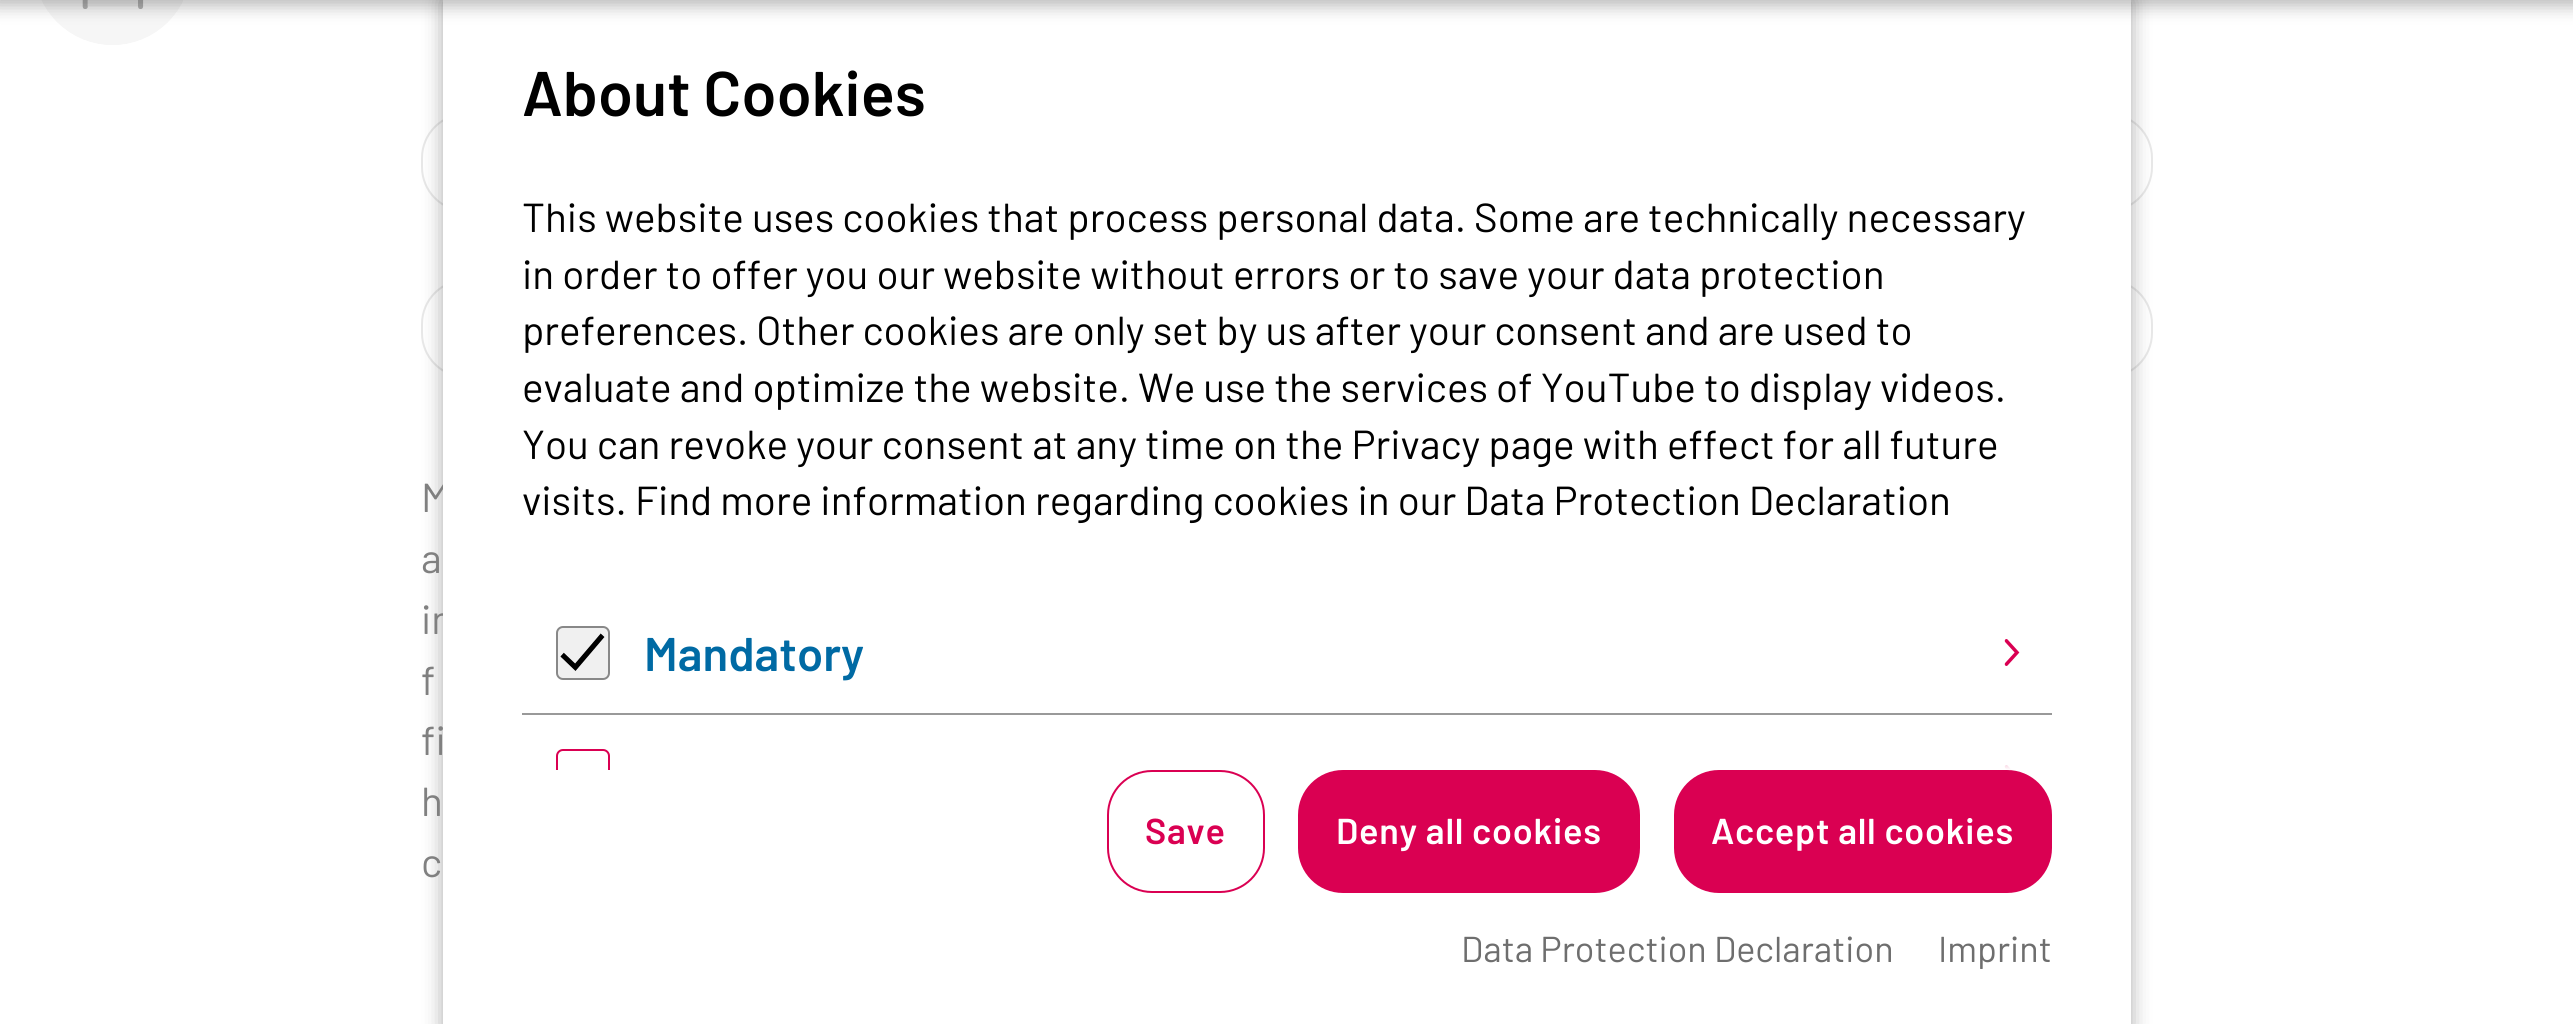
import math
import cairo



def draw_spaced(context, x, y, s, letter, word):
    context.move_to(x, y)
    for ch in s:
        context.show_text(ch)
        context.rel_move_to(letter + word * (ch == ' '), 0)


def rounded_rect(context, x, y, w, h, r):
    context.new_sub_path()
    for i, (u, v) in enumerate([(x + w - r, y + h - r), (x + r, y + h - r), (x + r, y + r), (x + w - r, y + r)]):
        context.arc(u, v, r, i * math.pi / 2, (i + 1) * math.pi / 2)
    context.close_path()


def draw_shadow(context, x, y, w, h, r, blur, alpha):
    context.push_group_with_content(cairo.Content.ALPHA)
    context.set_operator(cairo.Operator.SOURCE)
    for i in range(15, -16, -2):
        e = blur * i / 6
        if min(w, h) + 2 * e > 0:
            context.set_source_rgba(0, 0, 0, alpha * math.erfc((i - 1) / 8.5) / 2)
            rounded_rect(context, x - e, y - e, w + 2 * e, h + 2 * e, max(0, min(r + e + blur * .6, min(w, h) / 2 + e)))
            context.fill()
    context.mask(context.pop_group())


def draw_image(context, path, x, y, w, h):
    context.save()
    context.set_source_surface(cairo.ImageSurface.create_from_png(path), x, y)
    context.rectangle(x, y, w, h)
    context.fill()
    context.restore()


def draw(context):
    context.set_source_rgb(1, 1, 1)
    context.paint()
    draw_image(context, "images/1.png", 41, 0, 142, 45)
    rounded_rect(context, 422, 114, 1730, 97, 44)
    context.set_source_rgb(232 / 255, 232 / 255, 232 / 255)
    context.stroke()
    rounded_rect(context, 422, 280, 1730, 97, 44)
    context.stroke()
    context.set_source_rgb(0, 0, 0)
    draw_shadow(context, 443, 0, 1688, 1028, 0, 10, 0.33)
    context.select_font_face("Barlow")
    context.set_font_size(40.5)
    context.set_source_rgb(128 / 255, 128 / 255, 128 / 255)
    context.move_to(421, 512)
    context.show_text("M")
    context.move_to(421, 573)
    context.show_text("a")
    context.move_to(421, 634)
    context.show_text("in")
    context.move_to(421, 695)
    context.show_text("f")
    context.move_to(421, 755)
    context.show_text("fi")
    context.move_to(421, 816)
    context.show_text("h")
    context.move_to(421, 877)
    context.show_text("c")
    context.set_source_rgb(1, 1, 1)
    context.rectangle(443, 0, 1688, 1024)
    context.fill()
    context.set_source_rgb(0, 0, 0)
    draw_shadow(context, -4, -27, 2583, 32, 0, 9, 0.3)
    context.select_font_face("Barlow SemiBold")
    context.set_font_size(63)
    context.set_source_rgb(0, 0, 0)
    context.move_to(522, 116)
    context.show_text("About Cookies")
    context.select_font_face("Barlow")
    context.set_font_size(40.5)
    context.move_to(522, 232)
    context.show_text("This website uses cookies that process personal data. Some are technically necessary")
    context.move_to(522, 289)
    context.show_text("in order to offer you our website without errors or to save your data protection")
    context.move_to(522, 345)
    context.show_text("preferences. Other cookies are only set by us after your consent and are used to")
    context.move_to(522, 402)
    context.show_text("evaluate and optimize the website. We use the services of YouTube to display videos.")
    context.move_to(522, 459)
    context.show_text("You can revoke your consent at any time on the Privacy page with effect for all future")
    context.move_to(522, 515)
    context.show_text("visits. Find more information regarding cookies in our Data Protection Declaration")
    context.set_source_rgb(240 / 255, 240 / 255, 240 / 255)
    rounded_rect(context, 557, 627, 52, 52, 6)
    context.fill_preserve()
    context.set_source_rgb(136 / 255, 136 / 255, 136 / 255)
    context.stroke()
    draw_image(context, "images/2.png", 560, 633, 45, 38)
    context.select_font_face("Barlow SemiBold")
    context.set_font_size(47.25)
    context.set_source_rgb(0, 106 / 255, 164 / 255)
    context.move_to(644, 671)
    context.show_text("Mandatory")
    draw_image(context, "images/3.png", 2004, 639, 16, 27)
    context.set_source_rgb(153 / 255, 153 / 255, 153 / 255)
    context.rectangle(522, 713, 1530, 2)
    context.fill()
    draw_image(context, "images/4.png", 2004, 765, 8, 5)
    context.save()
    context.rectangle(443, 0, 1688, 770)
    context.clip()
    rounded_rect(context, 557, 750, 52, 52, 6)
    context.set_source_rgb(218 / 255, 0, 82 / 255)
    context.stroke()
    context.restore()
    gradient = cairo.LinearGradient(1287, 770, 1287, 736)
    gradient.add_color_stop_rgba(0, 1, 1, 1, 1)
    gradient.add_color_stop_rgba(1, 1, 1, 1, 0)
    context.set_source(gradient)
    context.rectangle(2004, 765, 8, 5)
    context.fill()
    rounded_rect(context, 1108, 771, 156, 121, 44)
    context.set_source_rgb(218 / 255, 0, 82 / 255)
    context.stroke()
    context.set_font_size(36)
    draw_spaced(context, 1145, 844, "Save", 0.75, 0)
    rounded_rect(context, 1299, 771, 340, 121, 44)
    context.fill_preserve()
    context.stroke()
    context.set_source_rgb(1, 1, 1)
    draw_spaced(context, 1336, 844, "Deny all cookies", 0.75, 0)
    context.set_source_rgb(218 / 255, 0, 82 / 255)
    rounded_rect(context, 1675, 771, 376, 121, 44)
    context.fill_preserve()
    context.stroke()
    context.set_source_rgb(1, 1, 1)
    draw_spaced(context, 1711, 844, "Accept all cookies", 0.75, 0)
    context.select_font_face("Barlow")
    context.set_source_rgb(110 / 255, 110 / 255, 110 / 255)
    context.move_to(1461, 962)
    context.show_text("Data Protection Declaration")
    context.move_to(1938, 962)
    context.show_text("Imprint")


surface = cairo.ImageSurface(cairo.Format.RGB24, 2573, 1024)
context = cairo.Context(surface)
options = cairo.FontOptions()
options.set_hint_metrics(cairo.HintMetrics.OFF)
options.set_hint_style(cairo.HintStyle.NONE)
context.set_font_options(options)
context.set_miter_limit(4)
draw(context)
surface.write_to_png("out.png")
